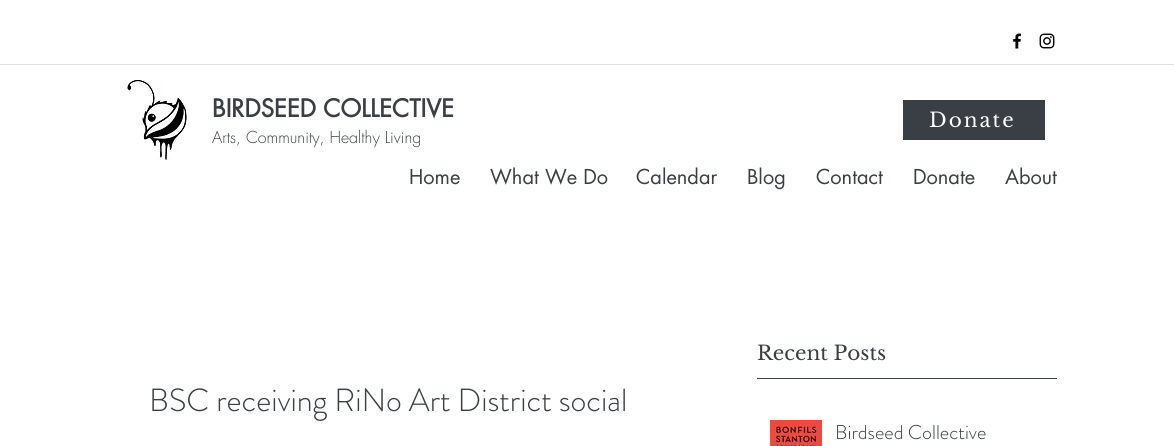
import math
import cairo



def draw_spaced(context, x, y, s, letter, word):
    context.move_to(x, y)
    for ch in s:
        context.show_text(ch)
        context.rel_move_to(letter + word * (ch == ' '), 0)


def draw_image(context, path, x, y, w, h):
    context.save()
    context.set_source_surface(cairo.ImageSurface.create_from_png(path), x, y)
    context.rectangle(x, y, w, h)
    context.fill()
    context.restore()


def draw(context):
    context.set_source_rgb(1, 1, 1)
    context.paint()
    context.set_source_rgb(225 / 255, 226 / 255, 227 / 255)
    context.rectangle(0, 64, 1174, 1)
    context.fill()
    draw_image(context, "images/1.png", 1013, 33, 9, 16)
    draw_image(context, "images/2.png", 1039, 33, 16, 16)
    draw_image(context, "images/3.png", 125, 80, 64, 80)
    context.set_source_rgb(57 / 255, 63 / 255, 68 / 255)
    context.rectangle(903, 100, 142, 40)
    context.fill()
    context.rectangle(757, 378, 300, 1)
    context.fill()
    draw_image(context, "images/4.png", 770, 420, 52, 26)
    context.select_font_face("futura", cairo.FontSlant.NORMAL, cairo.FontWeight.BOLD)
    context.set_font_size(24)
    context.move_to(212, 117)
    context.show_text("BIRDSEED COLLECTIVE")
    context.select_font_face("futura Light")
    context.set_font_size(16)
    context.move_to(212, 143)
    context.show_text("Arts, Community, Healthy Living")
    context.select_font_face("futura")
    context.set_font_size(20)
    context.move_to(409, 184)
    context.show_text("Home")
    context.move_to(490, 184)
    context.show_text("What We Do")
    context.move_to(636, 184)
    context.show_text("Calendar")
    context.move_to(747, 184)
    context.show_text("Blog")
    context.move_to(816, 184)
    context.show_text("Contact")
    context.move_to(913, 184)
    context.show_text("Donate")
    context.move_to(1005, 184)
    context.show_text("About")
    context.select_font_face("Libre Baskerville")
    context.set_source_rgb(1, 1, 1)
    draw_spaced(context, 929, 127, "Donate", 2, 0)
    context.select_font_face("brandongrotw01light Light")
    context.set_font_size(32)
    context.set_source_rgb(57 / 255, 63 / 255, 68 / 255)
    context.move_to(149, 411)
    context.show_text("BSC receiving RiNo Art District social")
    context.select_font_face("Libre Baskerville")
    context.set_font_size(20)
    context.move_to(757, 360)
    context.show_text("Recent Posts")
    context.select_font_face("brandongrotw01light Light")
    context.move_to(835, 439)
    context.show_text("Birdseed Collective")


surface = cairo.ImageSurface(cairo.Format.RGB24, 1174, 446)
context = cairo.Context(surface)
options = cairo.FontOptions()
options.set_hint_metrics(cairo.HintMetrics.OFF)
options.set_hint_style(cairo.HintStyle.NONE)
context.set_font_options(options)
context.set_miter_limit(4)
draw(context)
surface.write_to_png("out.png")
